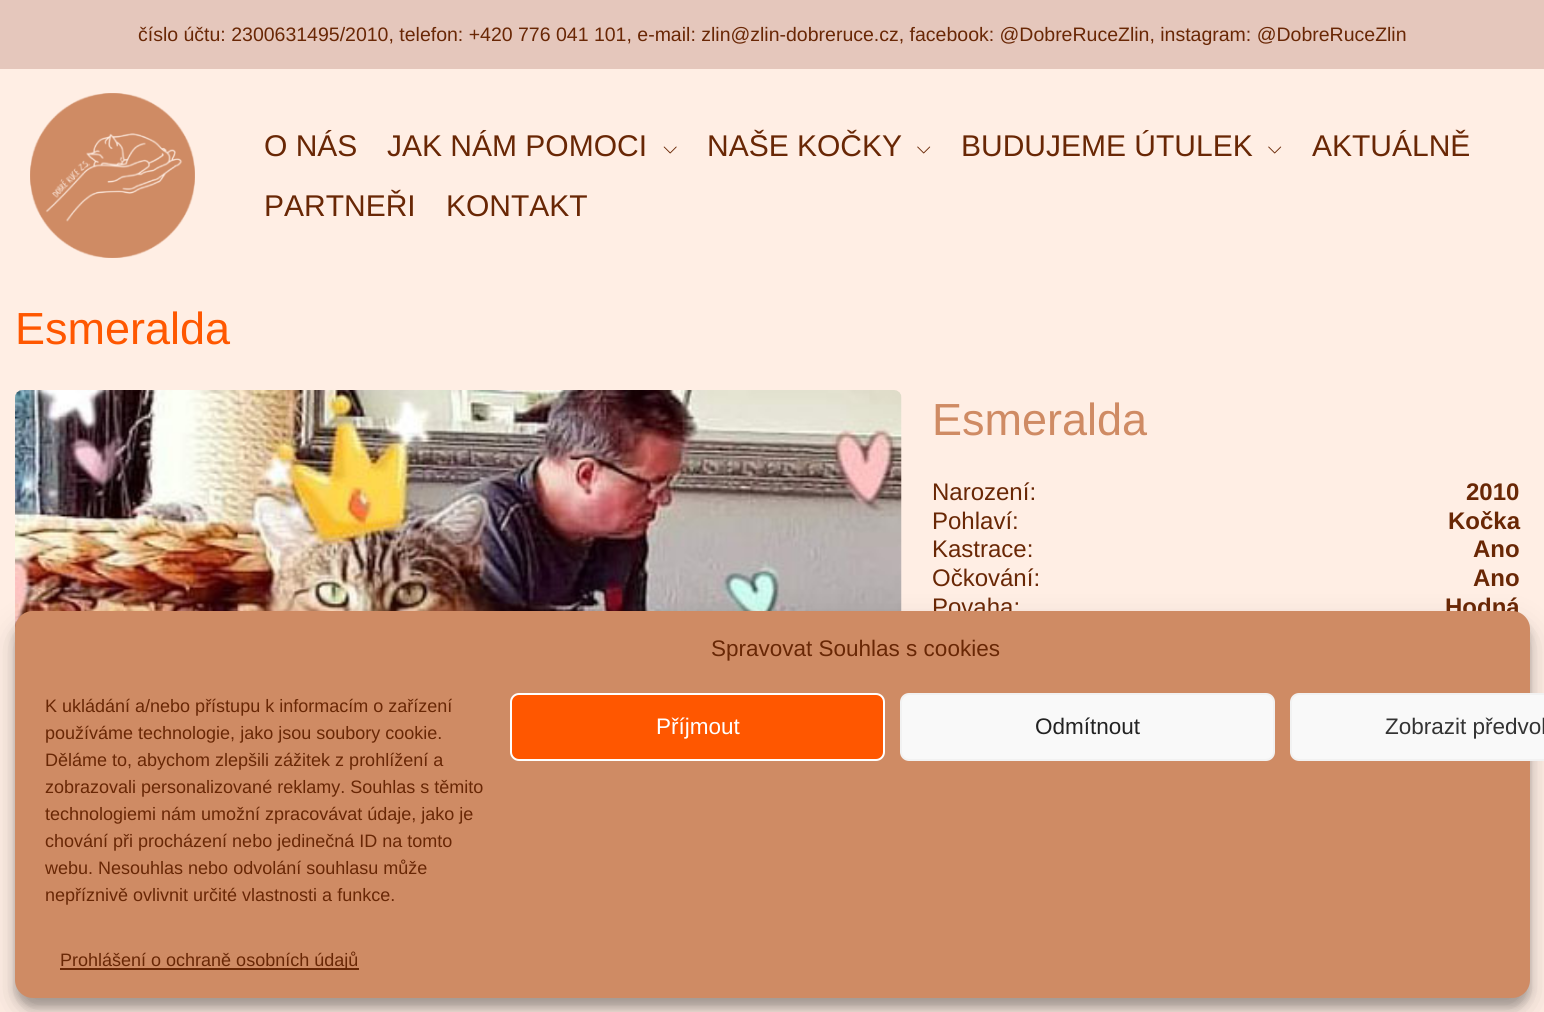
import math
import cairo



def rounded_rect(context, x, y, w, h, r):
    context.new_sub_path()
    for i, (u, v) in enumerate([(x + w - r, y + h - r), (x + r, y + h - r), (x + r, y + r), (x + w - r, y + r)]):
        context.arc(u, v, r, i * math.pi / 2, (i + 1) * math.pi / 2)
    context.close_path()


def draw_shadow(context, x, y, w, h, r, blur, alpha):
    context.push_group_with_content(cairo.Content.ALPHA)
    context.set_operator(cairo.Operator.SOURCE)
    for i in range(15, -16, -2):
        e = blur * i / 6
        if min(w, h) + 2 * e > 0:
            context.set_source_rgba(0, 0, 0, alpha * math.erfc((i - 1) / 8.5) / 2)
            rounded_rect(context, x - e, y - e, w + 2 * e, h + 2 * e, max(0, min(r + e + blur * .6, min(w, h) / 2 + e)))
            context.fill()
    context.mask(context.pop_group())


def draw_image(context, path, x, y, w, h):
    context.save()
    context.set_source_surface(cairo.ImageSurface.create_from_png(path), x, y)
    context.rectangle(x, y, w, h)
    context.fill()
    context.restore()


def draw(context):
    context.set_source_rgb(1, 238 / 255, 228 / 255)
    context.paint()
    context.set_source_rgb(229 / 255, 199 / 255, 188 / 255)
    context.rectangle(0, 0, 1544, 69)
    context.fill()
    draw_image(context, "images/1.png", 30, 93, 165, 165)
    draw_image(context, "images/2.png", 663, 146, 14, 8)
    draw_image(context, "images/3.png", 917, 146, 14, 8)
    draw_image(context, "images/3.png", 1268, 146, 14, 8)
    draw_image(context, "images/4.png", 15, 390, 887, 239)
    context.set_source_rgb(0, 0, 0)
    draw_shadow(context, 15, 620, 1515, 387, 18, 4.5, 0.23)
    draw_shadow(context, 15, 626, 1515, 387, 18, 15, 0.19)
    context.select_font_face("Liberation Sans")
    context.set_font_size(19.5)
    context.set_source_rgb(105 / 255, 39 / 255, 5 / 255)
    context.move_to(138, 41)
    context.show_text("číslo účtu: 2300631495/2010, telefon: +420 776 041 101, e-mail: zlin@zlin-dobreruce.cz, facebook: @DobreRuceZlin, instagram: @DobreRuceZlin")
    context.set_font_size(30)
    context.move_to(264, 156)
    context.show_text("O NÁS")
    context.move_to(387, 156)
    context.show_text("JAK NÁM POMOCI")
    context.move_to(707, 156)
    context.show_text("NAŠE KOČKY")
    context.move_to(961, 156)
    context.show_text("BUDUJEME ÚTULEK")
    context.move_to(1312, 156)
    context.show_text("AKTUÁLNĚ")
    context.move_to(264, 216)
    context.show_text("PARTNEŘI")
    context.move_to(446, 216)
    context.show_text("KONTAKT")
    context.set_font_size(45)
    context.set_source_rgb(1, 87 / 255, 0)
    context.move_to(15, 344)
    context.show_text("Esmeralda")
    context.set_source_rgb(207 / 255, 139 / 255, 100 / 255)
    context.move_to(932, 435)
    context.show_text("Esmeralda")
    context.set_font_size(24)
    context.set_source_rgb(105 / 255, 39 / 255, 5 / 255)
    context.move_to(932, 500)
    context.show_text("Narození:")
    context.select_font_face("Liberation Sans", cairo.FontSlant.NORMAL, cairo.FontWeight.BOLD)
    context.move_to(1466, 500)
    context.show_text("2010")
    context.select_font_face("Liberation Sans")
    context.move_to(932, 529)
    context.show_text("Pohlaví:")
    context.select_font_face("Liberation Sans", cairo.FontSlant.NORMAL, cairo.FontWeight.BOLD)
    context.move_to(1448, 529)
    context.show_text("Kočka")
    context.select_font_face("Liberation Sans")
    context.move_to(932, 557)
    context.show_text("Kastrace:")
    context.select_font_face("Liberation Sans", cairo.FontSlant.NORMAL, cairo.FontWeight.BOLD)
    context.move_to(1473, 557)
    context.show_text("Ano")
    context.select_font_face("Liberation Sans")
    context.move_to(932, 586)
    context.show_text("Očkování:")
    context.select_font_face("Liberation Sans", cairo.FontSlant.NORMAL, cairo.FontWeight.BOLD)
    context.move_to(1473, 586)
    context.show_text("Ano")
    context.select_font_face("Liberation Sans")
    context.move_to(932, 615)
    context.show_text("Povaha:")
    context.select_font_face("Liberation Sans", cairo.FontSlant.NORMAL, cairo.FontWeight.BOLD)
    context.move_to(1445, 615)
    context.show_text("Hodná")
    context.set_source_rgb(207 / 255, 139 / 255, 100 / 255)
    rounded_rect(context, 15, 611, 1515, 387, 18)
    context.fill()
    context.select_font_face("Liberation Sans")
    context.set_font_size(22.5)
    context.set_source_rgb(105 / 255, 39 / 255, 5 / 255)
    context.move_to(711, 656)
    context.show_text("Spravovat Souhlas s cookies")
    context.set_font_size(18)
    context.move_to(45, 712)
    context.show_text("K ukládání a/nebo přístupu k informacím o zařízení")
    context.move_to(45, 739)
    context.show_text("používáme technologie, jako jsou soubory cookie.")
    context.move_to(45, 766)
    context.show_text("Děláme to, abychom zlepšili zážitek z prohlížení a")
    context.move_to(45, 793)
    context.show_text("zobrazovali personalizované reklamy. Souhlas s těmito")
    context.move_to(45, 820)
    context.show_text("technologiemi nám umožní zpracovávat údaje, jako je")
    context.move_to(45, 847)
    context.show_text("chování při procházení nebo jedinečná ID na tomto")
    context.move_to(45, 874)
    context.show_text("webu. Nesouhlas nebo odvolání souhlasu může")
    context.move_to(45, 901)
    context.show_text("nepříznivě ovlivnit určité vlastnosti a funkce.")
    context.set_source_rgb(1, 87 / 255, 0)
    rounded_rect(context, 511, 694, 373, 66, 8)
    context.fill_preserve()
    context.set_source_rgb(1, 1, 1)
    context.stroke()
    context.set_font_size(22.5)
    context.move_to(656, 734)
    context.show_text("Příjmout")
    context.set_source_rgb(249 / 255, 249 / 255, 249 / 255)
    rounded_rect(context, 901, 694, 373, 66, 8)
    context.fill_preserve()
    context.set_source_rgb(242 / 255, 242 / 255, 242 / 255)
    context.stroke()
    context.set_source_rgb(34 / 255, 34 / 255, 34 / 255)
    context.move_to(1035, 734)
    context.show_text("Odmítnout")
    context.set_source_rgb(249 / 255, 249 / 255, 249 / 255)
    rounded_rect(context, 1291, 694, 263, 66, 8)
    context.fill_preserve()
    context.set_source_rgb(242 / 255, 242 / 255, 242 / 255)
    context.stroke()
    context.set_source_rgb(51 / 255, 51 / 255, 51 / 255)
    context.move_to(1385, 734)
    context.show_text("Zobrazit předvol")
    context.set_source_rgb(105 / 255, 39 / 255, 5 / 255)
    context.rectangle(60, 968, 299, 2)
    context.fill()
    context.set_font_size(18)
    context.move_to(60, 966)
    context.show_text("Prohlášení o ochraně osobních údajů")


surface = cairo.ImageSurface(cairo.Format.RGB24, 1544, 1012)
context = cairo.Context(surface)
options = cairo.FontOptions()
options.set_hint_metrics(cairo.HintMetrics.OFF)
options.set_hint_style(cairo.HintStyle.NONE)
context.set_font_options(options)
context.set_miter_limit(4)
draw(context)
surface.write_to_png("out.png")
